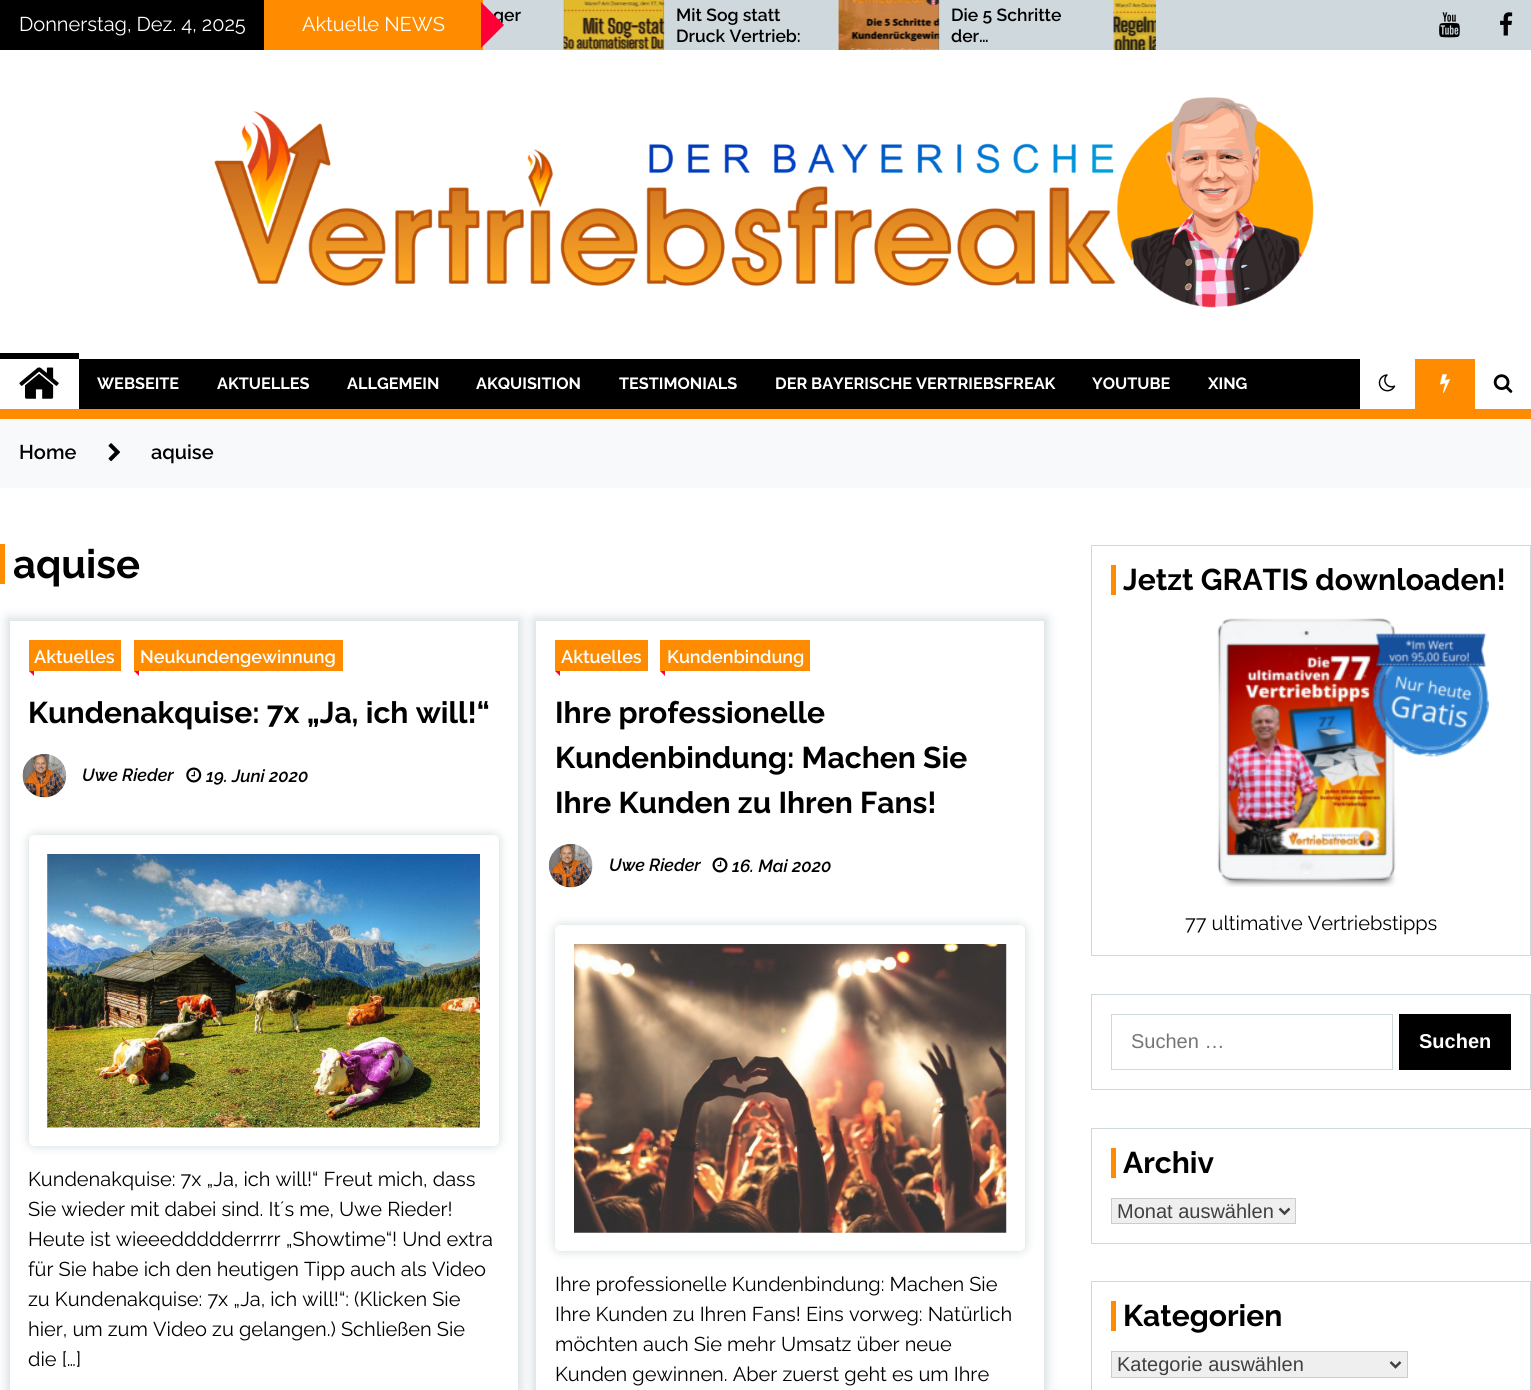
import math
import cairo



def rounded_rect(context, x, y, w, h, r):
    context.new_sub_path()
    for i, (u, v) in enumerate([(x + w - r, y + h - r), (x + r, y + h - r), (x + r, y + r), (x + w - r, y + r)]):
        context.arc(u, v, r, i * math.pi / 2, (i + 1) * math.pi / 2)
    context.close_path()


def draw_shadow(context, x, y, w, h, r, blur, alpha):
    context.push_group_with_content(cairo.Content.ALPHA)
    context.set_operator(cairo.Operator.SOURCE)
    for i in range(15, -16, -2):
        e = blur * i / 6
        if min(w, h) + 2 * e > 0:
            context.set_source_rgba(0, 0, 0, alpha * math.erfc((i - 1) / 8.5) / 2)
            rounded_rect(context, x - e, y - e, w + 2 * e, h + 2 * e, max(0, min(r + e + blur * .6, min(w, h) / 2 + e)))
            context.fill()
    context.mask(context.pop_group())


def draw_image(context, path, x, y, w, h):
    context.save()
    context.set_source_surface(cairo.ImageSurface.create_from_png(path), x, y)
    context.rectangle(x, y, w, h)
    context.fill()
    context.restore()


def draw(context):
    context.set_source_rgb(1, 1, 1)
    context.paint()
    context.set_source_rgb(207 / 255, 216 / 255, 220 / 255)
    context.rectangle(483, 0, 1048, 50)
    context.fill()
    context.set_source_rgb(0, 0, 0)
    context.rectangle(0, 0, 264, 50)
    context.fill()
    context.set_source_rgb(1, 140 / 255, 0)
    context.rectangle(264, 0, 219, 50)
    context.fill()
    context.set_source_rgb(123 / 255, 123 / 255, 123 / 255)
    context.rectangle(564, 0, 100, 50)
    context.fill()
    draw_image(context, "images/1.png", 563, 0, 102, 50)
    context.rectangle(839, 0, 100, 50)
    context.fill()
    draw_image(context, "images/2.png", 838, 0, 102, 50)
    draw_image(context, "images/3.png", 1113, 0, 43, 50)
    draw_image(context, "images/4.png", 1439, 12, 21, 26)
    draw_image(context, "images/5.png", 1500, 12, 13, 24)
    draw_image(context, "images/6.png", 214, 97, 1100, 211)
    context.set_source_rgb(0, 0, 0)
    context.rectangle(79, 359, 1281, 50)
    context.fill()
    context.rectangle(0, 353, 79, 6)
    context.fill()
    draw_image(context, "images/7.png", 19, 367, 40, 32)
    draw_image(context, "images/8.png", 1378, 374, 18, 18)
    context.set_source_rgb(1, 140 / 255, 0)
    context.rectangle(1415, 359, 60, 50)
    context.fill()
    draw_image(context, "images/9.png", 1440, 374, 10, 19)
    draw_image(context, "images/10.png", 1493, 374, 20, 19)
    context.rectangle(0, 409, 1531, 10)
    context.fill()
    context.set_source_rgb(248 / 255, 249 / 255, 250 / 255)
    context.rectangle(0, 419, 1531, 69)
    context.fill()
    draw_image(context, "images/11.png", 108, 443, 12, 19)
    context.set_source_rgb(1, 140 / 255, 0)
    context.rectangle(0, 544, 5, 40)
    context.fill()
    context.save()
    context.set_fill_rule(cairo.FillRule.EVEN_ODD)
    context.new_path()
    context.move_to(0, 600)
    context.line_to(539, 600)
    context.line_to(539, 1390)
    context.line_to(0, 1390)
    context.close_path()
    context.move_to(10, 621)
    context.line_to(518, 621)
    context.line_to(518, 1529)
    context.line_to(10, 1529)
    context.close_path()
    context.clip()
    context.set_source_rgb(207 / 255, 216 / 255, 220 / 255)
    draw_shadow(context, 8, 619, 512, 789, 0, 6, 1)
    context.restore()
    context.rectangle(29, 640, 92, 31)
    context.fill()
    context.set_source_rgb(1, 0, 54 / 255)
    context.new_path()
    context.move_to(34, 671)
    context.line_to(34, 676)
    context.line_to(29, 671)
    context.close_path()
    context.fill()
    context.set_source_rgb(1, 140 / 255, 0)
    context.rectangle(134, 640, 209, 31)
    context.fill()
    context.set_source_rgb(1, 0, 54 / 255)
    context.new_path()
    context.move_to(139, 671)
    context.line_to(139, 676)
    context.line_to(134, 671)
    context.close_path()
    context.fill()
    draw_image(context, "images/12.png", 22, 753, 45, 45)
    draw_image(context, "images/13.png", 186, 767, 16, 16)
    context.save()
    context.set_fill_rule(cairo.FillRule.EVEN_ODD)
    context.new_path()
    context.move_to(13, 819)
    context.line_to(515, 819)
    context.line_to(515, 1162)
    context.line_to(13, 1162)
    context.close_path()
    context.move_to(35, 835)
    context.line_to(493, 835)
    context.curve_to(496.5, 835, 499, 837.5, 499, 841)
    context.line_to(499, 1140)
    context.curve_to(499, 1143.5, 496.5, 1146, 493, 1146)
    context.line_to(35, 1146)
    context.curve_to(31.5, 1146, 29, 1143.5, 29, 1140)
    context.line_to(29, 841)
    context.curve_to(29, 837.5, 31.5, 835, 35, 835)
    context.close_path()
    context.clip()
    context.set_source_rgb(207 / 255, 216 / 255, 220 / 255)
    draw_shadow(context, 29, 835, 470, 311, 6, 5, 1)
    context.restore()
    draw_image(context, "images/14.png", 47, 854, 433, 274)
    context.save()
    context.set_fill_rule(cairo.FillRule.EVEN_ODD)
    context.new_path()
    context.move_to(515, 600)
    context.line_to(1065, 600)
    context.line_to(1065, 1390)
    context.line_to(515, 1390)
    context.close_path()
    context.move_to(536, 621)
    context.line_to(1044, 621)
    context.line_to(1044, 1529)
    context.line_to(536, 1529)
    context.close_path()
    context.clip()
    context.set_source_rgb(207 / 255, 216 / 255, 220 / 255)
    draw_shadow(context, 534, 619, 512, 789, 0, 6, 1)
    context.restore()
    context.set_source_rgb(1, 140 / 255, 0)
    context.rectangle(555, 640, 93, 31)
    context.fill()
    context.set_source_rgb(1, 0, 54 / 255)
    context.new_path()
    context.move_to(560, 671)
    context.line_to(560, 676)
    context.line_to(555, 671)
    context.close_path()
    context.fill()
    context.set_source_rgb(1, 140 / 255, 0)
    context.rectangle(660, 640, 150, 31)
    context.fill()
    context.set_source_rgb(1, 0, 54 / 255)
    context.new_path()
    context.move_to(665, 671)
    context.line_to(665, 676)
    context.line_to(660, 671)
    context.close_path()
    context.fill()
    draw_image(context, "images/15.png", 548, 843, 45, 45)
    draw_image(context, "images/16.png", 712, 857, 16, 16)
    context.save()
    context.set_fill_rule(cairo.FillRule.EVEN_ODD)
    context.new_path()
    context.move_to(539, 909)
    context.line_to(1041, 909)
    context.line_to(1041, 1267)
    context.line_to(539, 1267)
    context.close_path()
    context.move_to(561, 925)
    context.line_to(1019, 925)
    context.curve_to(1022.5, 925, 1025, 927.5, 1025, 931)
    context.line_to(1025, 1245)
    context.curve_to(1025, 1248.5, 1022.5, 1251, 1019, 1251)
    context.line_to(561, 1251)
    context.curve_to(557.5, 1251, 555, 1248.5, 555, 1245)
    context.line_to(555, 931)
    context.curve_to(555, 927.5, 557.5, 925, 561, 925)
    context.close_path()
    context.clip()
    context.set_source_rgb(207 / 255, 216 / 255, 220 / 255)
    draw_shadow(context, 555, 925, 470, 326, 6, 5, 1)
    context.restore()
    draw_image(context, "images/17.png", 574, 944, 433, 289)
    context.rectangle(1091.5, 545.5, 439, 410)
    context.set_source_rgb(207 / 255, 216 / 255, 220 / 255)
    context.set_line_width(1)
    context.stroke()
    context.set_source_rgb(1, 140 / 255, 0)
    context.rectangle(1111, 565, 5, 30)
    context.fill()
    draw_image(context, "images/18.png", 1217, 618, 273, 269)
    context.rectangle(1091.5, 994.5, 439, 95)
    context.set_source_rgb(207 / 255, 216 / 255, 220 / 255)
    context.stroke()
    context.rectangle(1111.5, 1014.5, 281, 55)
    context.stroke()
    context.set_source_rgb(0, 0, 0)
    context.rectangle(1399, 1014, 112, 56)
    context.fill()
    context.rectangle(1091.5, 1128.5, 439, 115)
    context.set_source_rgb(207 / 255, 216 / 255, 220 / 255)
    context.stroke()
    context.set_source_rgb(1, 140 / 255, 0)
    context.rectangle(1111, 1148, 5, 30)
    context.fill()
    context.set_source_rgb(239 / 255, 239 / 255, 239 / 255)
    context.rectangle(1111.5, 1198.5, 184, 25)
    context.fill_preserve()
    context.set_source_rgb(204 / 255, 204 / 255, 204 / 255)
    context.stroke()
    context.new_path()
    context.move_to(1279.5, 1208.5)
    context.line_to(1284.5, 1213.5)
    context.line_to(1289.5, 1208.5)
    context.set_source_rgb(64 / 255, 64 / 255, 64 / 255)
    context.set_line_width(2.5)
    context.stroke()
    context.rectangle(1091.5, 1281.5, 439, 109)
    context.set_source_rgb(207 / 255, 216 / 255, 220 / 255)
    context.set_line_width(1)
    context.stroke()
    context.set_source_rgb(1, 140 / 255, 0)
    context.rectangle(1111, 1301, 5, 30)
    context.fill()
    context.set_source_rgb(239 / 255, 239 / 255, 239 / 255)
    context.rectangle(1111.5, 1351.5, 296, 26)
    context.fill_preserve()
    context.set_source_rgb(204 / 255, 204 / 255, 204 / 255)
    context.stroke()
    context.new_path()
    context.move_to(1390.5, 1362)
    context.line_to(1395.5, 1367)
    context.line_to(1400.5, 1362)
    context.set_source_rgb(64 / 255, 64 / 255, 64 / 255)
    context.set_line_width(2.5)
    context.stroke()
    context.select_font_face("Raleway")
    context.set_font_size(20)
    context.set_source_rgb(1, 1, 1)
    context.move_to(19, 31)
    context.show_text("Donnerstag, Dez. 4, 2025")
    context.move_to(302, 31)
    context.show_text("Aktuelle NEWS")
    context.select_font_face("Raleway SemiBold")
    context.set_font_size(17.5)
    context.set_source_rgb(0, 0, 0)
    context.move_to(493, 21)
    context.show_text("ger")
    context.set_source_rgb(1, 0, 54 / 255)
    context.new_path()
    context.move_to(481, 48)
    context.line_to(481, 2)
    context.line_to(504, 25)
    context.close_path()
    context.fill()
    context.set_source_rgb(0, 0, 0)
    context.move_to(676, 21)
    context.show_text("Mit Sog statt")
    context.move_to(676, 42)
    context.show_text("Druck Vertrieb:")
    context.move_to(951, 21)
    context.show_text("Die 5 Schritte")
    context.move_to(951, 42)
    context.show_text("der…")
    context.select_font_face("Raleway", cairo.FontSlant.NORMAL, cairo.FontWeight.BOLD)
    context.set_font_size(16.25)
    context.set_source_rgb(1, 1, 1)
    context.move_to(97, 389)
    context.show_text("WEBSEITE")
    context.move_to(217, 389)
    context.show_text("AKTUELLES")
    context.move_to(347, 389)
    context.show_text("ALLGEMEIN")
    context.move_to(476, 389)
    context.show_text("AKQUISITION")
    context.move_to(619, 389)
    context.show_text("TESTIMONIALS")
    context.move_to(775, 389)
    context.show_text("DER BAYERISCHE VERTRIEBSFREAK")
    context.move_to(1092, 389)
    context.show_text("YOUTUBE")
    context.move_to(1208, 389)
    context.show_text("XING")
    context.select_font_face("Raleway SemiBold")
    context.set_font_size(20)
    context.set_source_rgb(0, 0, 0)
    context.move_to(19, 459)
    context.show_text("Home")
    context.move_to(151, 459)
    context.show_text("aquise")
    context.select_font_face("Raleway", cairo.FontSlant.NORMAL, cairo.FontWeight.BOLD)
    context.set_font_size(40)
    context.move_to(13, 578)
    context.show_text("aquise")
    context.select_font_face("Raleway SemiBold")
    context.set_font_size(18)
    context.set_source_rgb(1, 1, 1)
    context.move_to(34, 663)
    context.show_text("Aktuelles")
    context.move_to(140, 663)
    context.show_text("Neukundengewinnung")
    context.select_font_face("Raleway", cairo.FontSlant.NORMAL, cairo.FontWeight.BOLD)
    context.set_font_size(30)
    context.set_source_rgb(0, 0, 0)
    context.move_to(28, 723)
    context.show_text("Kundenakquise: 7x „Ja, ich will!“")
    context.select_font_face("Raleway SemiBold", cairo.FontSlant.ITALIC)
    context.set_font_size(17.5)
    context.move_to(82, 781)
    context.show_text("Uwe Rieder")
    context.move_to(206, 782)
    context.show_text("19. Juni 2020")
    context.select_font_face("Raleway")
    context.set_font_size(20)
    context.move_to(28, 1186)
    context.show_text("Kundenakquise: 7x „Ja, ich will!“ Freut mich, dass")
    context.move_to(28, 1216)
    context.show_text("Sie wieder mit dabei sind. It´s me, Uwe Rieder!")
    context.move_to(28, 1246)
    context.show_text("Heute ist wieeeddddderrrrr „Showtime“! Und extra")
    context.move_to(28, 1276)
    context.show_text("für Sie habe ich den heutigen Tipp auch als Video")
    context.move_to(28, 1306)
    context.show_text("zu Kundenakquise: 7x „Ja, ich will!“: (Klicken Sie")
    context.move_to(28, 1336)
    context.show_text("hier, um zum Video zu gelangen.) Schließen Sie")
    context.move_to(28, 1366)
    context.show_text("die […]")
    context.select_font_face("Raleway SemiBold")
    context.set_font_size(18)
    context.set_source_rgb(1, 1, 1)
    context.move_to(561, 663)
    context.show_text("Aktuelles")
    context.move_to(667, 663)
    context.show_text("Kundenbindung")
    context.select_font_face("Raleway", cairo.FontSlant.NORMAL, cairo.FontWeight.BOLD)
    context.set_font_size(30)
    context.set_source_rgb(0, 0, 0)
    context.move_to(555, 723)
    context.show_text("Ihre professionelle")
    context.move_to(555, 768)
    context.show_text("Kundenbindung: Machen Sie")
    context.move_to(555, 813)
    context.show_text("Ihre Kunden zu Ihren Fans!")
    context.select_font_face("Raleway SemiBold", cairo.FontSlant.ITALIC)
    context.set_font_size(17.5)
    context.move_to(609, 871)
    context.show_text("Uwe Rieder")
    context.move_to(732, 872)
    context.show_text("16. Mai 2020")
    context.select_font_face("Raleway")
    context.set_font_size(20)
    context.move_to(555, 1291)
    context.show_text("Ihre professionelle Kundenbindung: Machen Sie")
    context.move_to(555, 1321)
    context.show_text("Ihre Kunden zu Ihren Fans! Eins vorweg: Natürlich")
    context.move_to(555, 1351)
    context.show_text("möchten auch Sie mehr Umsatz über neue")
    context.move_to(555, 1381)
    context.show_text("Kunden gewinnen. Aber zuerst geht es um Ihre")
    context.select_font_face("Raleway", cairo.FontSlant.NORMAL, cairo.FontWeight.BOLD)
    context.set_font_size(30)
    context.move_to(1123, 590)
    context.show_text("Jetzt GRATIS downloaden!")
    context.select_font_face("Raleway")
    context.set_font_size(20)
    context.move_to(1185, 930)
    context.show_text("77 ultimative Vertriebstipps")
    context.select_font_face("Liberation Sans")
    context.set_source_rgb(117 / 255, 117 / 255, 117 / 255)
    context.move_to(1131, 1048)
    context.show_text("Suchen …")
    context.select_font_face("Liberation Sans", cairo.FontSlant.NORMAL, cairo.FontWeight.BOLD)
    context.set_source_rgb(1, 1, 1)
    context.move_to(1419, 1048)
    context.show_text("Suchen")
    context.select_font_face("Raleway", cairo.FontSlant.NORMAL, cairo.FontWeight.BOLD)
    context.set_font_size(30)
    context.set_source_rgb(0, 0, 0)
    context.move_to(1123, 1173)
    context.show_text("Archiv")
    context.select_font_face("Liberation Sans")
    context.set_font_size(20)
    context.set_source_rgb(64 / 255, 64 / 255, 64 / 255)
    context.move_to(1117, 1218)
    context.show_text("Monat auswählen")
    context.select_font_face("Raleway", cairo.FontSlant.NORMAL, cairo.FontWeight.BOLD)
    context.set_font_size(30)
    context.set_source_rgb(0, 0, 0)
    context.move_to(1123, 1326)
    context.show_text("Kategorien")
    context.select_font_face("Liberation Sans")
    context.set_font_size(20)
    context.set_source_rgb(64 / 255, 64 / 255, 64 / 255)
    context.move_to(1117, 1371)
    context.show_text("Kategorie auswählen")


surface = cairo.ImageSurface(cairo.Format.RGB24, 1531, 1390)
context = cairo.Context(surface)
options = cairo.FontOptions()
options.set_hint_metrics(cairo.HintMetrics.OFF)
options.set_hint_style(cairo.HintStyle.NONE)
context.set_font_options(options)
context.set_miter_limit(4)
draw(context)
surface.write_to_png("out.png")
